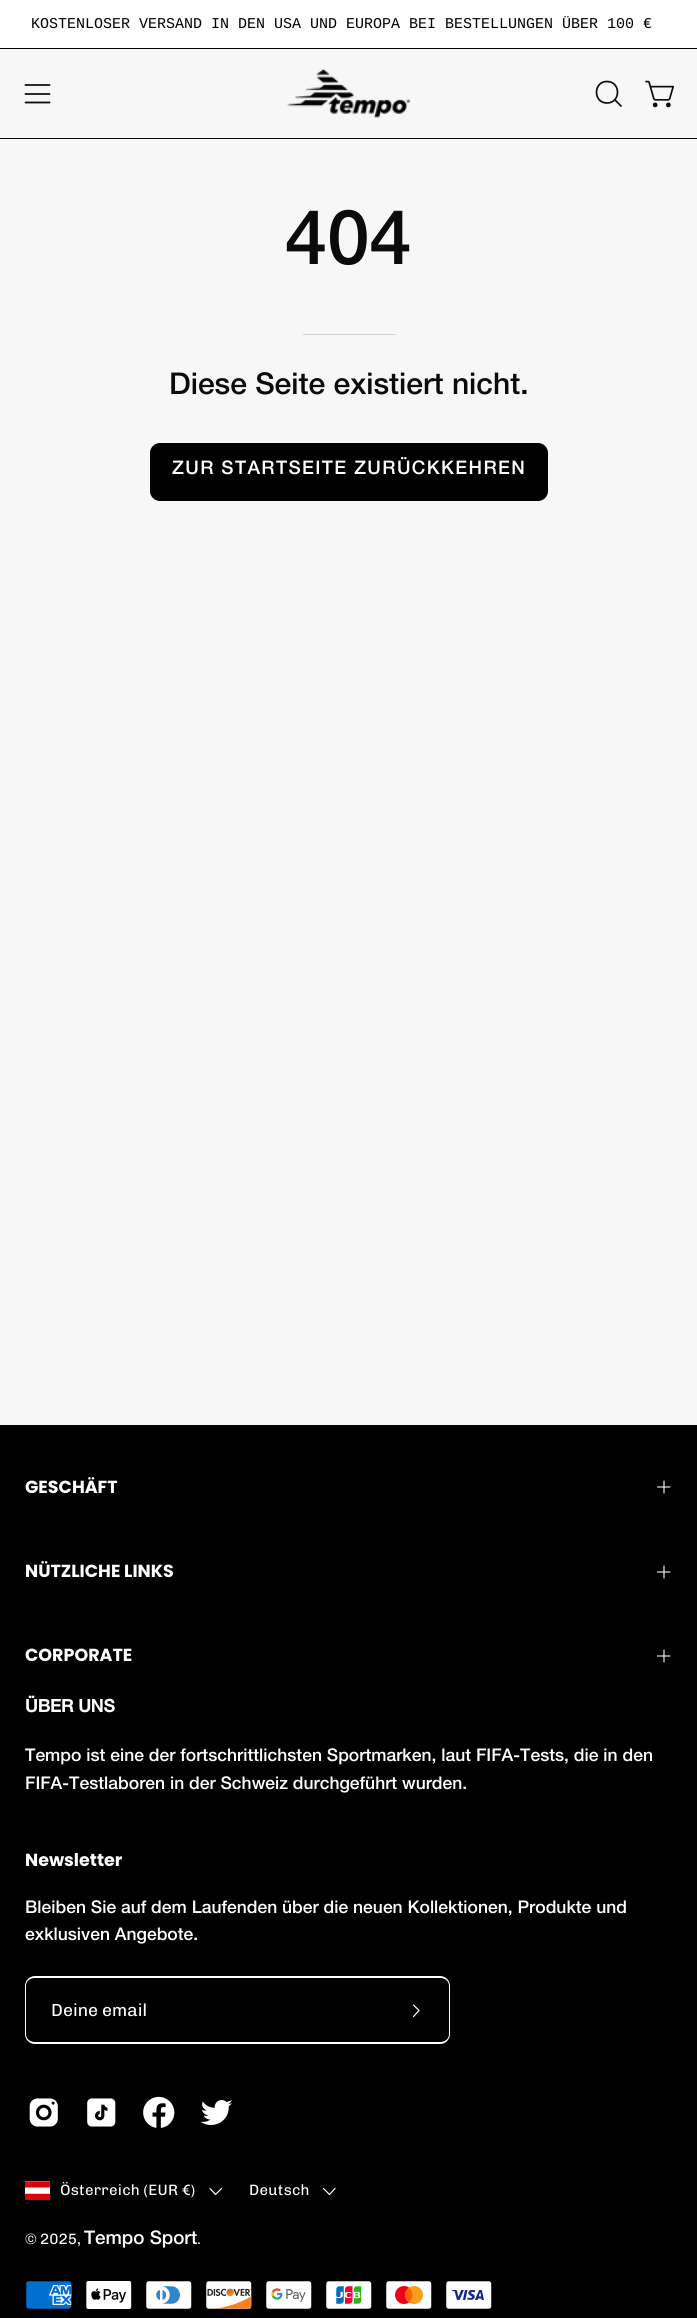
import math
import cairo



def draw_spaced(context, x, y, s, letter, word):
    context.move_to(x, y)
    for ch in s:
        context.show_text(ch)
        context.rel_move_to(letter + word * (ch == ' '), 0)


def rounded_rect(context, x, y, w, h, r):
    context.new_sub_path()
    for i, (u, v) in enumerate([(x + w - r, y + h - r), (x + r, y + h - r), (x + r, y + r), (x + w - r, y + r)]):
        context.arc(u, v, r, i * math.pi / 2, (i + 1) * math.pi / 2)
    context.close_path()


def draw_image(context, path, x, y, w, h):
    context.save()
    context.set_source_surface(cairo.ImageSurface.create_from_png(path), x, y)
    context.rectangle(x, y, w, h)
    context.fill()
    context.restore()


def draw(context):
    context.set_source_rgb(247 / 255, 247 / 255, 247 / 255)
    context.paint()
    context.set_source_rgb(1, 1, 1)
    context.rectangle(0, 0, 697, 48)
    context.fill()
    context.set_source_rgb(0, 0, 0)
    context.rectangle(0, 48, 697, 1)
    context.fill()
    context.new_path()
    context.move_to(25.5, 94)
    context.line_to(49.5, 94)
    context.move_to(25.5, 85)
    context.line_to(49.5, 85)
    context.move_to(25.5, 102.5)
    context.line_to(49.5, 102.5)
    context.set_source_rgb(11 / 255, 11 / 255, 11 / 255)
    context.set_line_width(1.8)
    context.set_line_cap(cairo.LineCap.ROUND)
    context.set_line_join(cairo.LineJoin.ROUND)
    context.stroke()
    draw_image(context, "images/1.png", 287, 68, 124, 50)
    context.new_path()
    context.move_to(607, 103)
    context.curve_to(621, 103, 621, 81.5, 607, 81.5)
    context.curve_to(593, 81.5, 593, 103, 607, 103)
    context.close_path()
    context.move_to(615, 100)
    context.line_to(621, 106)
    context.set_line_width(1.7)
    context.stroke()
    draw_image(context, "images/2.png", 645, 80, 29, 28)
    context.new_path()
    context.move_to(0, 138)
    context.line_to(0, 139)
    context.line_to(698, 139)
    context.line_to(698, 50)
    context.line_to(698, 138)
    context.close_path()
    context.fill()
    context.set_source_rgb(211 / 255, 211 / 255, 211 / 255)
    context.rectangle(303, 334, 93, 1)
    context.fill()
    context.set_source_rgb(0, 0, 0)
    rounded_rect(context, 150, 443, 398, 58, 10)
    context.fill()
    context.rectangle(0, 1425, 697, 893)
    context.fill()
    context.new_path()
    context.move_to(657.5, 1487)
    context.line_to(670, 1487)
    context.move_to(664, 1481)
    context.line_to(664, 1493)
    context.set_source_rgb(1, 1, 1)
    context.set_line_width(1.1)
    context.stroke()
    context.new_path()
    context.move_to(657.5, 1572)
    context.line_to(670, 1572)
    context.move_to(664, 1566)
    context.line_to(664, 1578)
    context.stroke()
    context.new_path()
    context.move_to(657.5, 1656)
    context.line_to(670, 1656)
    context.move_to(664, 1650)
    context.line_to(664, 1662)
    context.stroke()
    context.set_fill_rule(cairo.FillRule.EVEN_ODD)
    context.new_path()
    context.move_to(35, 1976)
    context.line_to(382, 1976)
    context.line_to(382, 2044)
    context.line_to(35, 2044)
    context.curve_to(29, 2044, 25, 2039, 25, 2034)
    context.line_to(25, 1986)
    context.curve_to(25, 1981, 29, 1976, 35, 1976)
    context.close_path()
    context.move_to(35, 1978)
    context.line_to(382, 1978)
    context.line_to(382, 2042)
    context.line_to(35, 2042)
    context.curve_to(30, 2042, 26, 2039, 26, 2034)
    context.line_to(26, 1986)
    context.curve_to(26, 1981, 30, 1978, 35, 1978)
    context.close_path()
    context.fill()
    context.new_path()
    context.move_to(382, 1976)
    context.line_to(440, 1976)
    context.curve_to(446, 1976, 450, 1981, 450, 1986)
    context.line_to(450, 2034)
    context.curve_to(450, 2039, 446, 2044, 440, 2044)
    context.line_to(382, 2044)
    context.close_path()
    context.move_to(382, 1978)
    context.line_to(440, 1978)
    context.curve_to(445, 1978, 449, 1981, 449, 1986)
    context.line_to(449, 2034)
    context.curve_to(449, 2039, 445, 2042, 440, 2042)
    context.line_to(382, 2042)
    context.close_path()
    context.fill()
    context.new_path()
    context.move_to(413.5, 2005)
    context.line_to(419, 2010.5)
    context.line_to(413.5, 2016.5)
    context.set_line_width(1.2)
    context.stroke()
    draw_image(context, "images/3.png", 29, 2098, 29, 29)
    draw_image(context, "images/4.png", 87, 2098, 29, 29)
    draw_image(context, "images/5.png", 143, 2096, 32, 32)
    draw_image(context, "images/6.png", 200, 2100, 32, 25)
    draw_image(context, "images/7.png", 25, 2181, 25, 19)
    context.new_path()
    context.move_to(221.5, 2188.5)
    context.line_to(215.5, 2194.5)
    context.line_to(210, 2188.5)
    context.stroke()
    context.new_path()
    context.move_to(335, 2188.5)
    context.line_to(329.5, 2194.5)
    context.line_to(323.5, 2188.5)
    context.stroke()
    draw_image(context, "images/8.png", 26, 2281, 46, 28)
    draw_image(context, "images/9.png", 86, 2281, 46, 28)
    draw_image(context, "images/10.png", 146, 2281, 46, 28)
    draw_image(context, "images/11.png", 206, 2281, 46, 28)
    draw_image(context, "images/12.png", 266, 2281, 46, 28)
    draw_image(context, "images/13.png", 326, 2281, 46, 28)
    draw_image(context, "images/14.png", 386, 2281, 46, 28)
    draw_image(context, "images/15.png", 446, 2281, 46, 28)
    context.select_font_face("Liberation Mono")
    context.set_font_size(15)
    context.set_source_rgb(0, 0, 0)
    context.move_to(31, 28)
    context.show_text("KOSTENLOSER VERSAND IN DEN USA UND EUROPA BEI BESTELLUNGEN ÜBER 100 €")
    context.select_font_face("Helvetica Neue Medium")
    context.set_font_size(76)
    context.set_source_rgb(11 / 255, 11 / 255, 11 / 255)
    context.move_to(285, 264)
    context.show_text("404")
    context.set_font_size(30)
    context.move_to(169, 394)
    context.show_text("Diese Seite existiert nicht.")
    context.set_font_size(18.75)
    context.set_source_rgb(1, 1, 1)
    draw_spaced(context, 172, 474, "ZUR STARTSEITE ZURÜCKKEHREN", 1.4, 0)
    context.select_font_face("Poppins", cairo.FontSlant.NORMAL, cairo.FontWeight.BOLD)
    context.set_font_size(17.5)
    context.move_to(25, 1493)
    context.show_text("GESCHÄFT")
    context.move_to(25, 1577)
    context.show_text("NÜTZLICHE LINKS")
    context.move_to(25, 1661)
    context.show_text("CORPORATE")
    context.select_font_face("Helvetica Neue", cairo.FontSlant.NORMAL, cairo.FontWeight.BOLD)
    context.move_to(25, 1712)
    context.show_text("ÜBER UNS")
    context.select_font_face("Helvetica Neue Medium")
    context.move_to(25, 1761)
    context.show_text("Tempo ist eine der fortschrittlichsten Sportmarken, laut FIFA-Tests, die in den")
    context.move_to(25, 1789)
    context.show_text("FIFA-Testlaboren in der Schweiz durchgeführt wurden.")
    context.select_font_face("Poppins", cairo.FontSlant.NORMAL, cairo.FontWeight.BOLD)
    context.move_to(25, 1866)
    context.show_text("Newsletter")
    context.select_font_face("Helvetica Neue Medium")
    context.move_to(25, 1913)
    context.show_text("Bleiben Sie auf dem Laufenden über die neuen Kollektionen, Produkte und")
    context.move_to(25, 1940)
    context.show_text("exklusiven Angebote.")
    context.select_font_face("Chivo")
    context.move_to(51, 2016)
    context.show_text("Deine email")
    context.set_font_size(15)
    draw_spaced(context, 60, 2195, "Österreich (EUR €)", 0.25, 0)
    draw_spaced(context, 249, 2195, "Deutsch", 0.25, 0)
    context.move_to(25, 2244)
    context.show_text("© 2025,")
    context.select_font_face("Helvetica Neue Medium")
    context.set_font_size(18.75)
    context.move_to(84, 2244)
    context.show_text("Tempo Sport")
    context.select_font_face("Chivo")
    context.set_font_size(15)
    context.move_to(197, 2244)
    context.show_text(".")


surface = cairo.ImageSurface(cairo.Format.RGB24, 697, 2318)
context = cairo.Context(surface)
options = cairo.FontOptions()
options.set_hint_metrics(cairo.HintMetrics.OFF)
options.set_hint_style(cairo.HintStyle.NONE)
context.set_font_options(options)
context.set_miter_limit(4)
draw(context)
surface.write_to_png("out.png")
